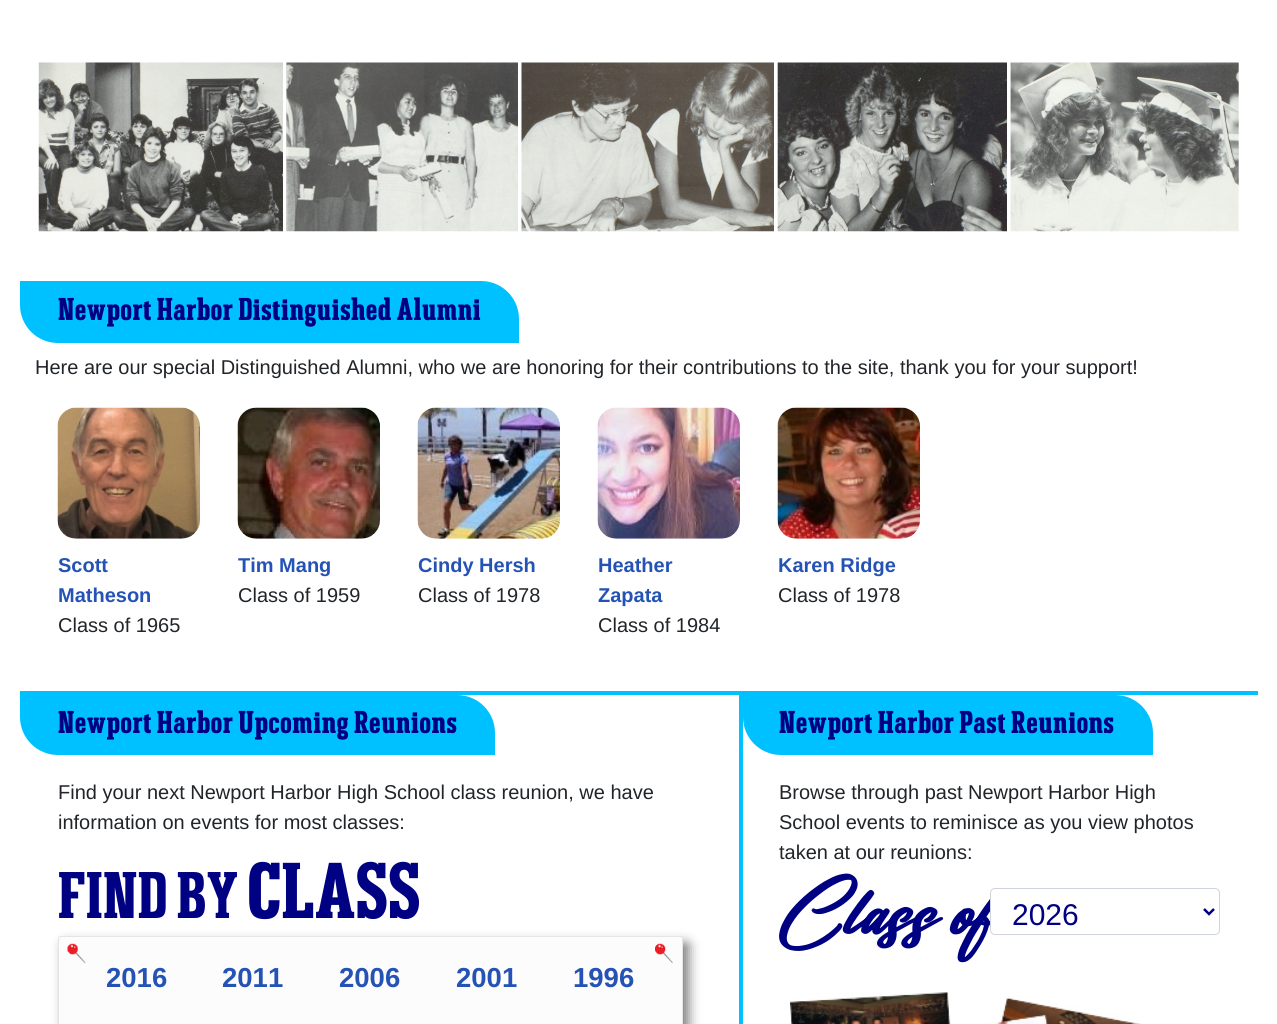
import math
import cairo



def draw_spaced(context, x, y, s, letter, word):
    context.move_to(x, y)
    for ch in s:
        context.show_text(ch)
        context.rel_move_to(letter + word * (ch == ' '), 0)


def rounded_rect(context, x, y, w, h, r):
    context.new_sub_path()
    for i, (u, v) in enumerate([(x + w - r, y + h - r), (x + r, y + h - r), (x + r, y + r), (x + w - r, y + r)]):
        context.arc(u, v, r, i * math.pi / 2, (i + 1) * math.pi / 2)
    context.close_path()


def draw_shadow(context, x, y, w, h, r, blur, alpha):
    context.push_group_with_content(cairo.Content.ALPHA)
    context.set_operator(cairo.Operator.SOURCE)
    for i in range(15, -16, -2):
        e = blur * i / 6
        if min(w, h) + 2 * e > 0:
            context.set_source_rgba(0, 0, 0, alpha * math.erfc((i - 1) / 8.5) / 2)
            rounded_rect(context, x - e, y - e, w + 2 * e, h + 2 * e, max(0, min(r + e + blur * .6, min(w, h) / 2 + e)))
            context.fill()
    context.mask(context.pop_group())


def draw_image(context, path, x, y, w, h):
    context.save()
    context.set_source_surface(cairo.ImageSurface.create_from_png(path), x, y)
    context.rectangle(x, y, w, h)
    context.fill()
    context.restore()


def draw(context):
    context.set_source_rgb(1, 1, 1)
    context.paint()
    draw_image(context, "images/1.png", 38, 62, 1201, 170)
    context.set_source_rgb(0, 193 / 255, 1)
    context.rectangle(20, 691, 1238, 4)
    context.fill()
    context.new_path()
    context.move_to(20, 281)
    context.line_to(481, 281)
    context.curve_to(502, 281, 519, 298, 519, 319)
    context.line_to(519, 343)
    context.line_to(58, 343)
    context.curve_to(37, 343, 20, 326, 20, 305)
    context.close_path()
    context.fill()
    draw_image(context, "images/2.png", 57, 407, 143, 132)
    draw_image(context, "images/3.png", 237, 407, 143, 132)
    draw_image(context, "images/4.png", 417, 407, 143, 132)
    draw_image(context, "images/5.png", 597, 407, 143, 132)
    draw_image(context, "images/6.png", 777, 407, 143, 132)
    context.rectangle(739, 695, 4, 329)
    context.fill()
    context.new_path()
    context.move_to(20, 695)
    context.line_to(457, 695)
    context.curve_to(478, 695, 495, 712, 495, 733)
    context.line_to(495, 755)
    context.line_to(58, 755)
    context.curve_to(37, 755, 20, 738, 20, 717)
    context.close_path()
    context.fill()
    context.set_source_rgb(0, 0, 0)
    draw_shadow(context, 64, 943, 625, 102, 2.5, 6, 0.5)
    context.set_source_rgb(252 / 255, 252 / 255, 252 / 255)
    rounded_rect(context, 58.5, 936.5, 624, 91, 2)
    context.fill_preserve()
    context.set_source_rgb(231 / 255, 229 / 255, 227 / 255)
    context.set_line_width(1)
    context.stroke()
    draw_image(context, "images/7.png", 67, 943, 19, 21)
    draw_image(context, "images/8.png", 655, 943, 18, 21)
    context.set_source_rgb(0, 193 / 255, 1)
    context.new_path()
    context.move_to(743, 695)
    context.line_to(1115, 695)
    context.curve_to(1136, 695, 1153, 712, 1153, 733)
    context.line_to(1153, 755)
    context.line_to(781, 755)
    context.curve_to(760, 755, 743, 738, 743, 717)
    context.close_path()
    context.fill()
    draw_image(context, "images/9.png", 790, 992, 352, 32)
    context.select_font_face("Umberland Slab")
    context.set_font_size(30)
    context.set_source_rgb(0, 0, 130 / 255)
    draw_spaced(context, 58, 320, "Newport Harbor Distinguished Alumni", 0.6, 0)
    context.select_font_face("Liberation Sans")
    context.set_font_size(20)
    context.set_source_rgb(33 / 255, 37 / 255, 41 / 255)
    context.move_to(35, 374)
    context.show_text("Here are our special Distinguished Alumni, who we are honoring for their contributions to the site, thank you for your support!")
    context.select_font_face("Liberation Sans", cairo.FontSlant.NORMAL, cairo.FontWeight.BOLD)
    context.set_source_rgb(37 / 255, 83 / 255, 181 / 255)
    context.move_to(58, 572)
    context.show_text("Scott")
    context.move_to(58, 602)
    context.show_text("Matheson")
    context.select_font_face("Liberation Sans")
    context.set_source_rgb(33 / 255, 37 / 255, 41 / 255)
    context.move_to(58, 632)
    context.show_text("Class of 1965")
    context.select_font_face("Liberation Sans", cairo.FontSlant.NORMAL, cairo.FontWeight.BOLD)
    context.set_source_rgb(37 / 255, 83 / 255, 181 / 255)
    context.move_to(238, 572)
    context.show_text("Tim Mang")
    context.select_font_face("Liberation Sans")
    context.set_source_rgb(33 / 255, 37 / 255, 41 / 255)
    context.move_to(238, 602)
    context.show_text("Class of 1959")
    context.select_font_face("Liberation Sans", cairo.FontSlant.NORMAL, cairo.FontWeight.BOLD)
    context.set_source_rgb(37 / 255, 83 / 255, 181 / 255)
    context.move_to(418, 572)
    context.show_text("Cindy Hersh")
    context.select_font_face("Liberation Sans")
    context.set_source_rgb(33 / 255, 37 / 255, 41 / 255)
    context.move_to(418, 602)
    context.show_text("Class of 1978")
    context.select_font_face("Liberation Sans", cairo.FontSlant.NORMAL, cairo.FontWeight.BOLD)
    context.set_source_rgb(37 / 255, 83 / 255, 181 / 255)
    context.move_to(598, 572)
    context.show_text("Heather")
    context.move_to(598, 602)
    context.show_text("Zapata")
    context.select_font_face("Liberation Sans")
    context.set_source_rgb(33 / 255, 37 / 255, 41 / 255)
    context.move_to(598, 632)
    context.show_text("Class of 1984")
    context.select_font_face("Liberation Sans", cairo.FontSlant.NORMAL, cairo.FontWeight.BOLD)
    context.set_source_rgb(37 / 255, 83 / 255, 181 / 255)
    context.move_to(778, 572)
    context.show_text("Karen Ridge")
    context.select_font_face("Liberation Sans")
    context.set_source_rgb(33 / 255, 37 / 255, 41 / 255)
    context.move_to(778, 602)
    context.show_text("Class of 1978")
    context.select_font_face("Umberland Slab")
    context.set_font_size(30)
    context.set_source_rgb(0, 0, 130 / 255)
    draw_spaced(context, 58, 733, "Newport Harbor Upcoming Reunions", 0.6, 0)
    context.select_font_face("Liberation Sans")
    context.set_font_size(20)
    context.set_source_rgb(33 / 255, 37 / 255, 41 / 255)
    context.move_to(58, 799)
    context.show_text("Find your next Newport Harbor High School class reunion, we have")
    context.move_to(58, 829)
    context.show_text("information on events for most classes:")
    context.select_font_face("Umberland Slab")
    context.set_font_size(62.5)
    context.set_source_rgb(0, 0, 130 / 255)
    draw_spaced(context, 58, 918, "FIND BY", 0.6, 0)
    context.set_font_size(75)
    draw_spaced(context, 248, 918, "CLASS", 0.6, 0)
    context.select_font_face("Liberation Sans", cairo.FontSlant.NORMAL, cairo.FontWeight.BOLD)
    context.set_font_size(27.5)
    context.set_source_rgb(37 / 255, 83 / 255, 181 / 255)
    context.move_to(106, 987)
    context.show_text("2016")
    context.move_to(222, 987)
    context.show_text("2011")
    context.move_to(339, 987)
    context.show_text("2006")
    context.move_to(456, 987)
    context.show_text("2001")
    context.move_to(573, 987)
    context.show_text("1996")
    context.select_font_face("Umberland Slab")
    context.set_font_size(30)
    context.set_source_rgb(0, 0, 130 / 255)
    draw_spaced(context, 779, 733, "Newport Harbor Past Reunions", 0.6, 0)
    context.select_font_face("Liberation Sans")
    context.set_font_size(20)
    context.set_source_rgb(33 / 255, 37 / 255, 41 / 255)
    context.move_to(779, 799)
    context.show_text("Browse through past Newport Harbor High")
    context.move_to(779, 829)
    context.show_text("School events to reminisce as you view photos")
    context.move_to(779, 859)
    context.show_text("taken at our reunions:")
    context.select_font_face("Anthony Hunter", cairo.FontSlant.ITALIC, cairo.FontWeight.BOLD)
    context.set_font_size(75)
    context.set_source_rgb(0, 0, 130 / 255)
    context.move_to(779, 934)
    context.show_text("Class of")
    context.set_source_rgb(1, 1, 1)
    rounded_rect(context, 990.5, 888.5, 229, 46, 4.5)
    context.fill_preserve()
    context.set_source_rgb(206 / 255, 212 / 255, 218 / 255)
    context.stroke()
    context.new_path()
    context.move_to(1204, 909)
    context.line_to(1209, 914)
    context.line_to(1214, 909)
    context.set_source_rgb(0, 0, 130 / 255)
    context.set_line_width(2.5)
    context.stroke()
    context.select_font_face("Liberation Sans")
    context.set_font_size(30)
    context.move_to(1012, 925)
    context.show_text("2026")


surface = cairo.ImageSurface(cairo.Format.RGB24, 1277, 1024)
context = cairo.Context(surface)
options = cairo.FontOptions()
options.set_hint_metrics(cairo.HintMetrics.OFF)
options.set_hint_style(cairo.HintStyle.NONE)
context.set_font_options(options)
context.set_miter_limit(4)
draw(context)
surface.write_to_png("out.png")
